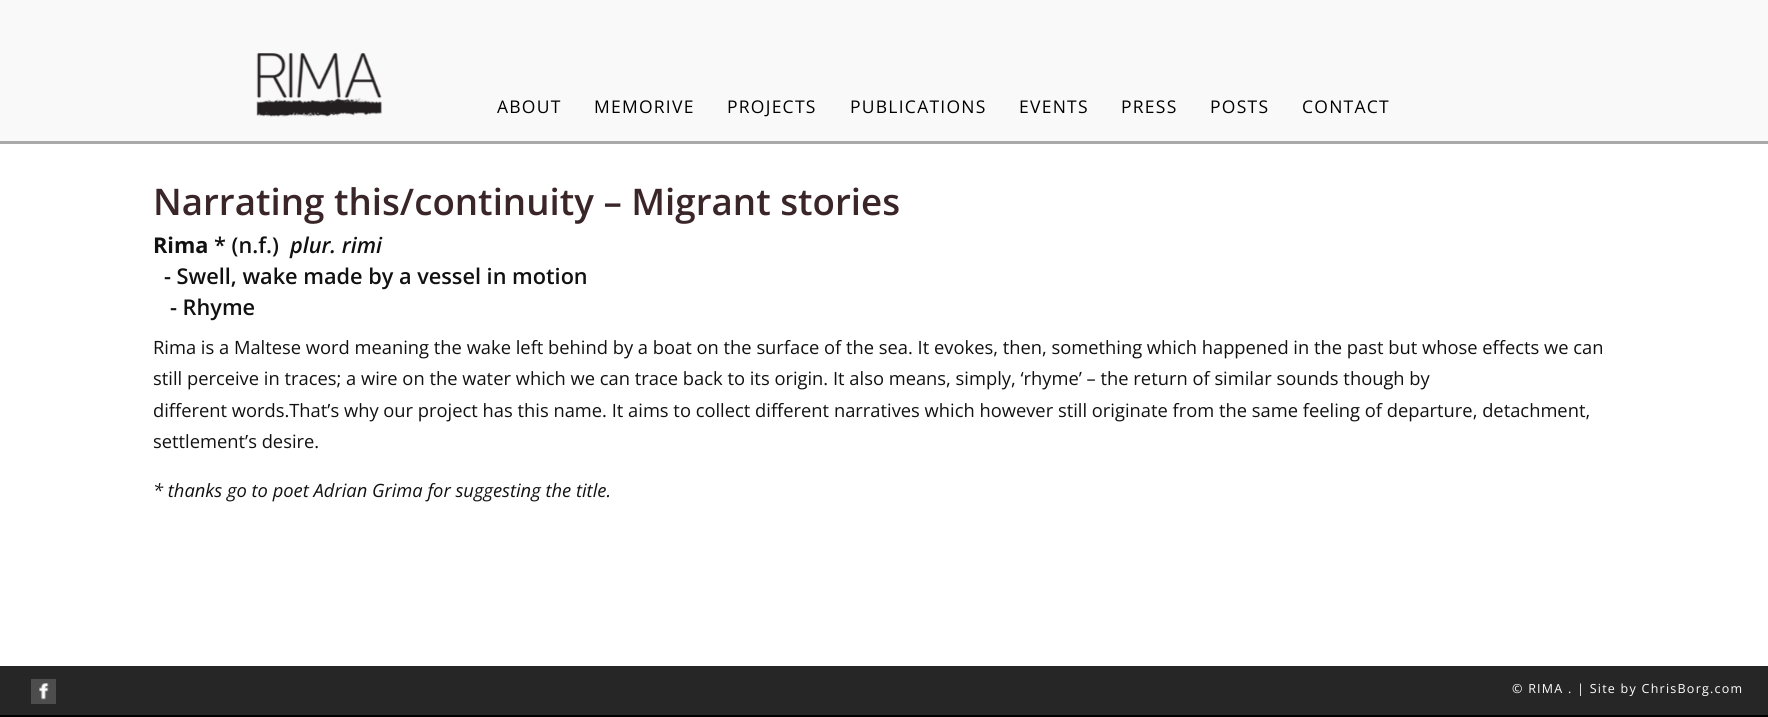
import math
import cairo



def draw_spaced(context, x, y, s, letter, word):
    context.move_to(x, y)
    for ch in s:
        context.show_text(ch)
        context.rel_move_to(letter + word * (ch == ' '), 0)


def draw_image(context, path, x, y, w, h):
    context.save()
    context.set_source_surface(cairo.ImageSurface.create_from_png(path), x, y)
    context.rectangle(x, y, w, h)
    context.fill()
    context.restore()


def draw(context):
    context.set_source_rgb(1, 1, 1)
    context.paint()
    context.set_source_rgb(249 / 255, 249 / 255, 249 / 255)
    context.rectangle(0, 0, 1768, 141)
    context.fill()
    context.set_source_rgb(169 / 255, 169 / 255, 169 / 255)
    context.rectangle(0, 141, 1768, 3)
    context.fill()
    draw_image(context, "images/1.png", 256, 53, 126, 64)
    context.set_source_rgb(38 / 255, 38 / 255, 38 / 255)
    context.rectangle(0, 666, 1768, 49)
    context.fill()
    context.set_source_rgb(77 / 255, 77 / 255, 77 / 255)
    context.rectangle(31, 679, 25, 25)
    context.fill()
    draw_image(context, "images/2.png", 39, 683, 10, 17)
    context.set_source_rgb(0, 0, 0)
    context.rectangle(0, 715, 1768, 2)
    context.fill()
    context.select_font_face("Open Sans")
    context.set_font_size(17.5)
    draw_spaced(context, 497, 113, "ABOUT", 1.25, 0)
    draw_spaced(context, 594, 113, "MEMORIVE", 1.25, 0)
    draw_spaced(context, 727, 113, "PROJECTS", 1.25, 0)
    draw_spaced(context, 850, 113, "PUBLICATIONS", 1.25, 0)
    draw_spaced(context, 1019, 113, "EVENTS", 1.25, 0)
    draw_spaced(context, 1121, 113, "PRESS", 1.25, 0)
    draw_spaced(context, 1210, 113, "POSTS", 1.25, 0)
    draw_spaced(context, 1302, 113, "CONTACT", 1.25, 0)
    context.select_font_face("Open Sans SemiBold")
    context.set_font_size(36.7)
    context.set_source_rgb(58 / 255, 38 / 255, 40 / 255)
    context.move_to(153, 215)
    context.show_text("Narrating this/continuity – Migrant stories")
    context.select_font_face("Open Sans", cairo.FontSlant.NORMAL, cairo.FontWeight.BOLD)
    context.set_font_size(21.7)
    context.set_source_rgb(17 / 255, 17 / 255, 17 / 255)
    context.move_to(153, 253)
    context.show_text("Rima")
    context.select_font_face("Open Sans SemiBold")
    context.move_to(214, 253)
    context.show_text("* (n.f.)")
    context.select_font_face("Open Sans SemiBold", cairo.FontSlant.ITALIC)
    context.move_to(290, 253)
    context.show_text("plur. rimi")
    context.select_font_face("Open Sans SemiBold")
    context.move_to(164, 284)
    context.show_text("- Swell, wake made by a vessel in motion")
    context.move_to(170, 315)
    context.show_text("- Rhyme")
    context.select_font_face("Open Sans")
    context.set_font_size(18.33)
    context.move_to(153, 354)
    context.show_text("Rima is a Maltese word meaning the wake left behind by a boat on the surface of the sea. It evokes, then, something which happened in the past but whose effects we can")
    context.move_to(153, 385)
    context.show_text("still perceive in traces; a wire on the water which we can trace back to its origin. It also means, simply, ‘rhyme’ – the return of similar sounds though by")
    context.move_to(153, 417)
    context.show_text("different words.That’s why our project has this name. It aims to collect different narratives which however still originate from the same feeling of departure, detachment,")
    context.move_to(153, 448)
    context.show_text("settlement’s desire.")
    context.select_font_face("Open Sans", cairo.FontSlant.ITALIC)
    context.move_to(153, 497)
    context.show_text("* thanks go to poet Adrian Grima for suggesting the title.")
    context.select_font_face("Open Sans")
    context.set_font_size(12.5)
    context.set_source_rgb(1, 1, 1)
    draw_spaced(context, 1512, 693, "© RIMA . | Site by ChrisBorg.com", 1.25, 0)


surface = cairo.ImageSurface(cairo.Format.RGB24, 1768, 717)
context = cairo.Context(surface)
options = cairo.FontOptions()
options.set_hint_metrics(cairo.HintMetrics.OFF)
options.set_hint_style(cairo.HintStyle.NONE)
context.set_font_options(options)
context.set_miter_limit(4)
draw(context)
surface.write_to_png("out.png")
